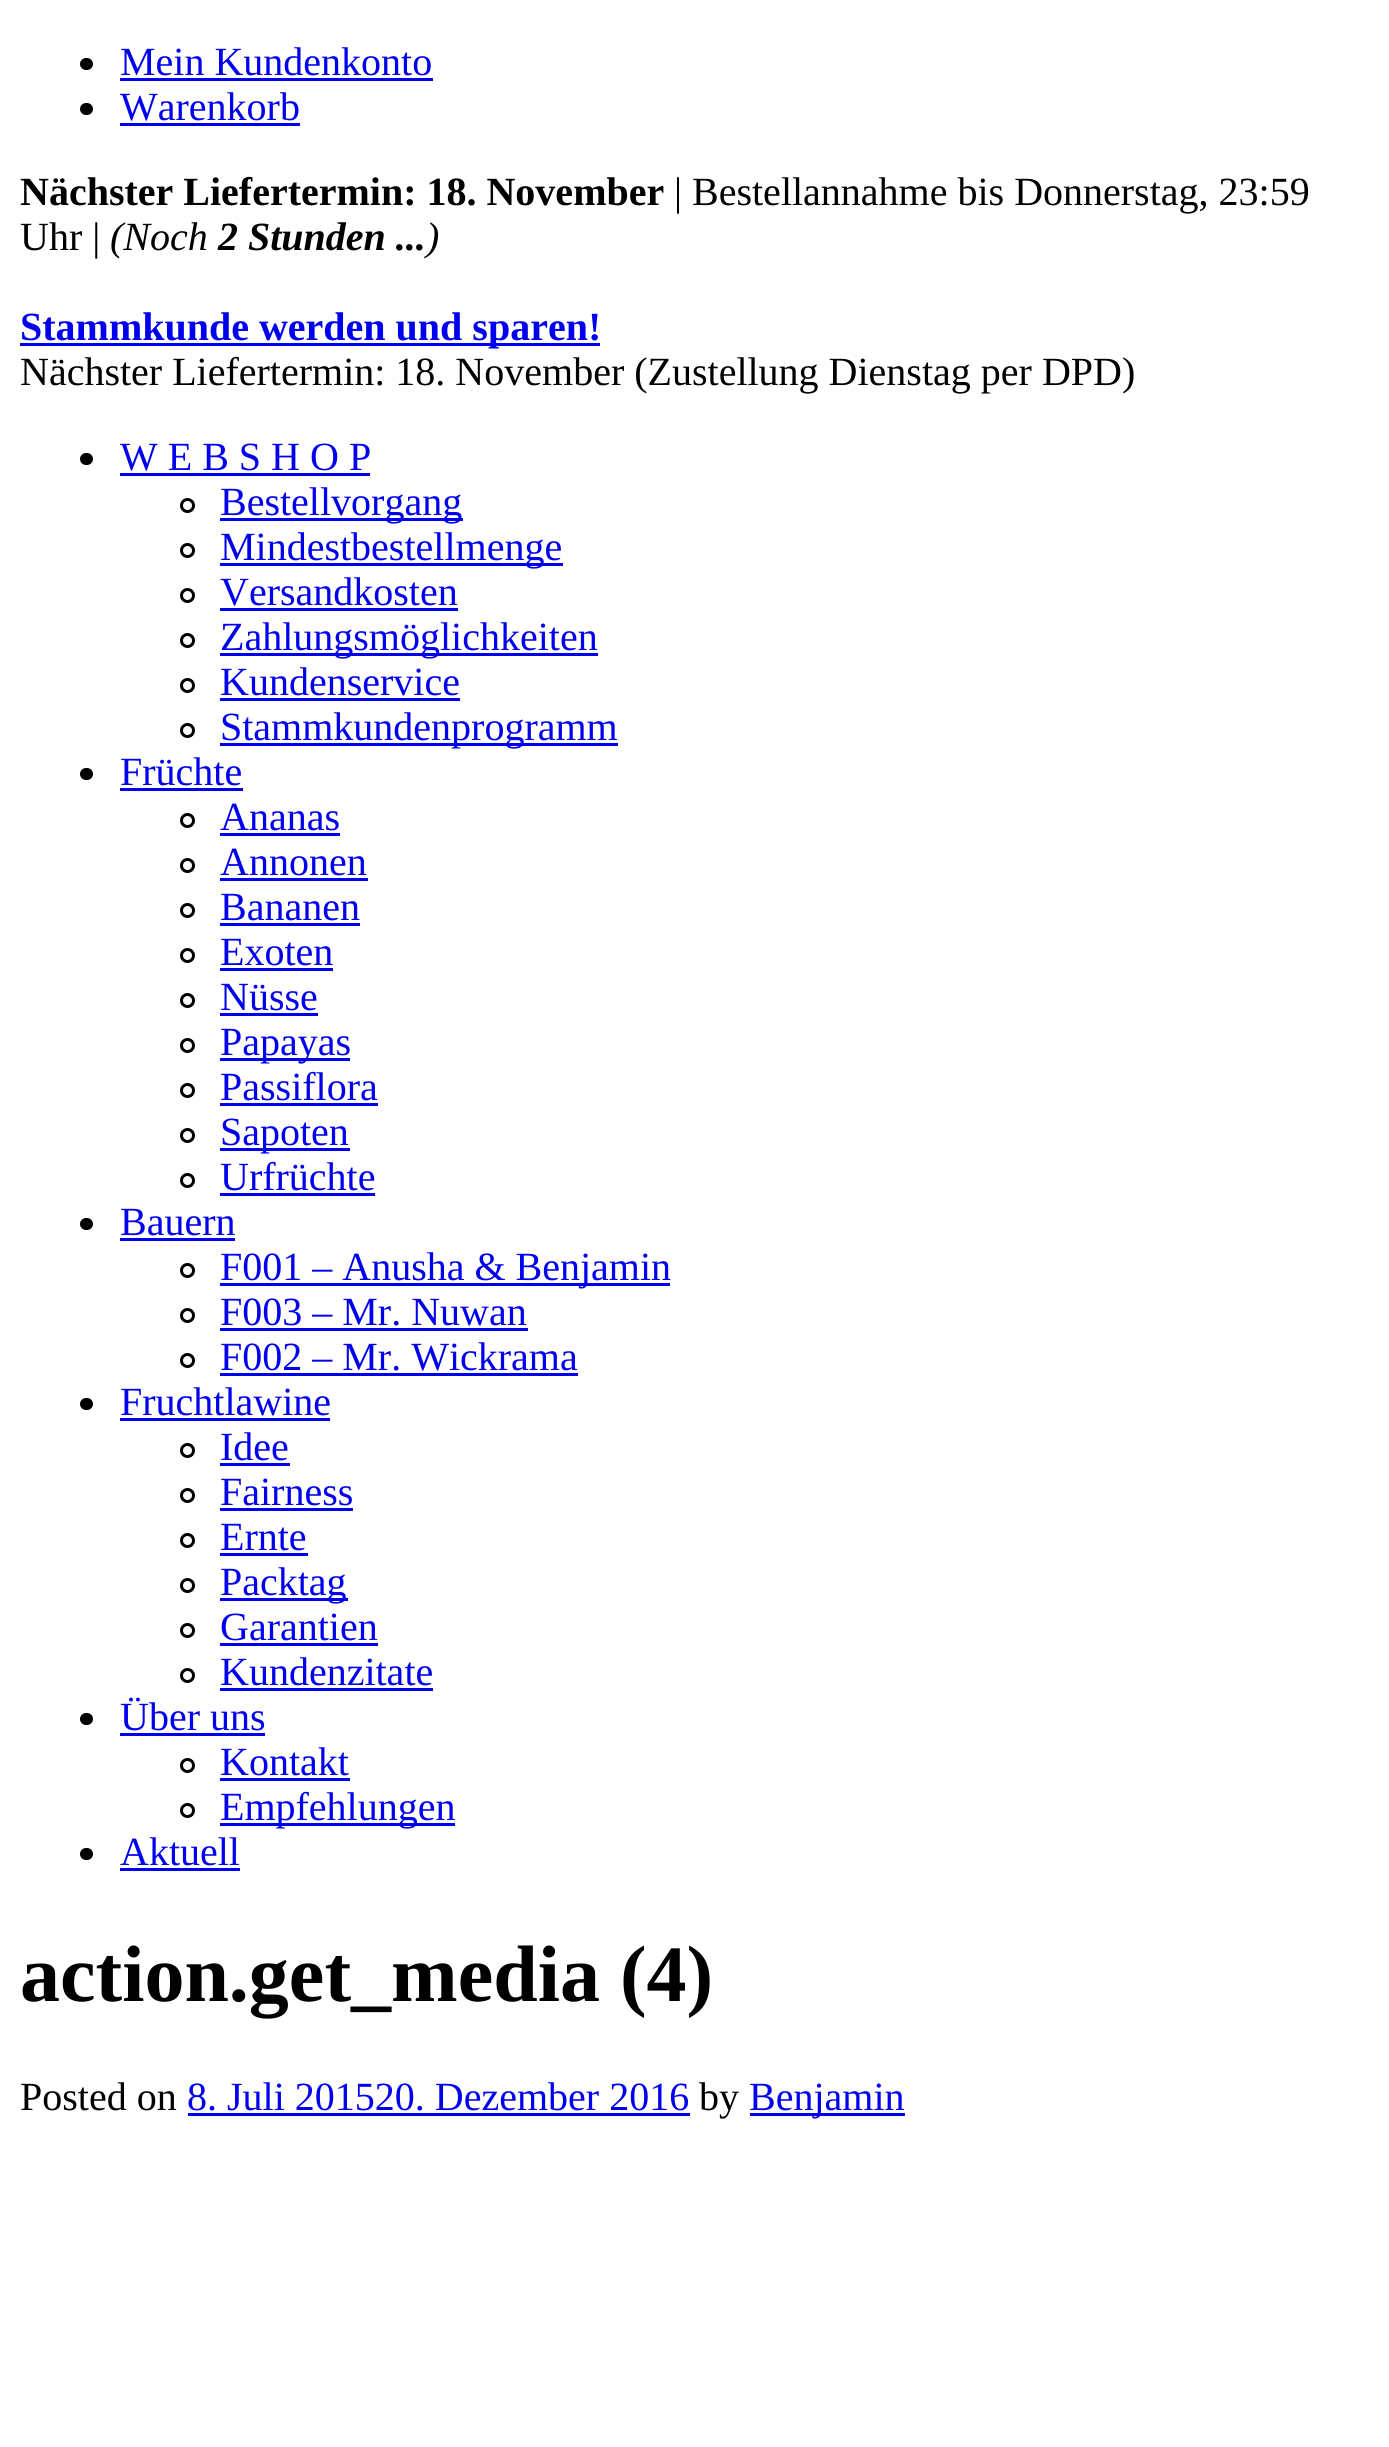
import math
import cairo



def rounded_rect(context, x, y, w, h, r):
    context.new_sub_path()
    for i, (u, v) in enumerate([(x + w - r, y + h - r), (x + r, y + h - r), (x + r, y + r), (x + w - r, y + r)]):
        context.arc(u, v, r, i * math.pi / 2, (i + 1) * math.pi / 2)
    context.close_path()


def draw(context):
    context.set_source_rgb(1, 1, 1)
    context.paint()
    context.set_source_rgb(0, 0, 0)
    rounded_rect(context, 80, 58, 13, 12, 6)
    context.fill()
    context.set_source_rgb(0, 0, 238 / 255)
    context.rectangle(120, 78, 313, 3)
    context.fill()
    context.set_source_rgb(0, 0, 0)
    rounded_rect(context, 80, 103, 13, 12, 6)
    context.fill()
    context.set_source_rgb(0, 0, 238 / 255)
    context.rectangle(120, 123, 180, 3)
    context.fill()
    context.rectangle(20, 343, 580, 3)
    context.fill()
    context.set_source_rgb(0, 0, 0)
    rounded_rect(context, 80, 453, 13, 12, 6)
    context.fill()
    context.set_source_rgb(0, 0, 238 / 255)
    context.rectangle(120, 473, 250, 3)
    context.fill()
    context.arc(187.5, 505.5, 6, 0, 2 * math.pi)
    context.set_source_rgb(0, 0, 0)
    context.set_line_width(3)
    context.stroke()
    context.set_source_rgb(0, 0, 238 / 255)
    context.rectangle(220, 518, 243, 3)
    context.fill()
    context.arc(187.5, 550.5, 6, 0, 2 * math.pi)
    context.set_source_rgb(0, 0, 0)
    context.stroke()
    context.set_source_rgb(0, 0, 238 / 255)
    context.rectangle(220, 563, 343, 3)
    context.fill()
    context.arc(187.5, 595.5, 6, 0, 2 * math.pi)
    context.set_source_rgb(0, 0, 0)
    context.stroke()
    context.set_source_rgb(0, 0, 238 / 255)
    context.rectangle(220, 608, 238, 3)
    context.fill()
    context.arc(187.5, 640.5, 6, 0, 2 * math.pi)
    context.set_source_rgb(0, 0, 0)
    context.stroke()
    context.set_source_rgb(0, 0, 238 / 255)
    context.rectangle(220, 653, 378, 3)
    context.fill()
    context.arc(187.5, 685.5, 6, 0, 2 * math.pi)
    context.set_source_rgb(0, 0, 0)
    context.stroke()
    context.set_source_rgb(0, 0, 238 / 255)
    context.rectangle(220, 698, 240, 3)
    context.fill()
    context.arc(187.5, 730.5, 6, 0, 2 * math.pi)
    context.set_source_rgb(0, 0, 0)
    context.stroke()
    context.set_source_rgb(0, 0, 238 / 255)
    context.rectangle(220, 743, 398, 3)
    context.fill()
    context.set_source_rgb(0, 0, 0)
    rounded_rect(context, 80, 768, 13, 12, 6)
    context.fill()
    context.set_source_rgb(0, 0, 238 / 255)
    context.rectangle(120, 788, 123, 3)
    context.fill()
    context.arc(187.5, 820.5, 6, 0, 2 * math.pi)
    context.set_source_rgb(0, 0, 0)
    context.stroke()
    context.set_source_rgb(0, 0, 238 / 255)
    context.rectangle(220, 833, 120, 3)
    context.fill()
    context.arc(187.5, 865.5, 6, 0, 2 * math.pi)
    context.set_source_rgb(0, 0, 0)
    context.stroke()
    context.set_source_rgb(0, 0, 238 / 255)
    context.rectangle(220, 878, 148, 3)
    context.fill()
    context.arc(187.5, 910.5, 6, 0, 2 * math.pi)
    context.set_source_rgb(0, 0, 0)
    context.stroke()
    context.set_source_rgb(0, 0, 238 / 255)
    context.rectangle(220, 923, 140, 3)
    context.fill()
    context.arc(187.5, 955.5, 6, 0, 2 * math.pi)
    context.set_source_rgb(0, 0, 0)
    context.stroke()
    context.set_source_rgb(0, 0, 238 / 255)
    context.rectangle(220, 968, 113, 3)
    context.fill()
    context.arc(187.5, 1000.5, 6, 0, 2 * math.pi)
    context.set_source_rgb(0, 0, 0)
    context.stroke()
    context.set_source_rgb(0, 0, 238 / 255)
    context.rectangle(220, 1013, 98, 3)
    context.fill()
    context.arc(187.5, 1045.5, 6, 0, 2 * math.pi)
    context.set_source_rgb(0, 0, 0)
    context.stroke()
    context.set_source_rgb(0, 0, 238 / 255)
    context.rectangle(220, 1058, 130, 3)
    context.fill()
    context.arc(187.5, 1090.5, 6, 0, 2 * math.pi)
    context.set_source_rgb(0, 0, 0)
    context.stroke()
    context.set_source_rgb(0, 0, 238 / 255)
    context.rectangle(220, 1103, 158, 3)
    context.fill()
    context.arc(187.5, 1135.5, 6, 0, 2 * math.pi)
    context.set_source_rgb(0, 0, 0)
    context.stroke()
    context.set_source_rgb(0, 0, 238 / 255)
    context.rectangle(220, 1148, 130, 3)
    context.fill()
    context.arc(187.5, 1180.5, 6, 0, 2 * math.pi)
    context.set_source_rgb(0, 0, 0)
    context.stroke()
    context.set_source_rgb(0, 0, 238 / 255)
    context.rectangle(220, 1193, 155, 3)
    context.fill()
    context.set_source_rgb(0, 0, 0)
    rounded_rect(context, 80, 1218, 13, 12, 6)
    context.fill()
    context.set_source_rgb(0, 0, 238 / 255)
    context.rectangle(120, 1238, 115, 3)
    context.fill()
    context.arc(187.5, 1270.5, 6, 0, 2 * math.pi)
    context.set_source_rgb(0, 0, 0)
    context.stroke()
    context.set_source_rgb(0, 0, 238 / 255)
    context.rectangle(220, 1283, 450, 3)
    context.fill()
    context.arc(187.5, 1315.5, 6, 0, 2 * math.pi)
    context.set_source_rgb(0, 0, 0)
    context.stroke()
    context.set_source_rgb(0, 0, 238 / 255)
    context.rectangle(220, 1328, 308, 3)
    context.fill()
    context.arc(187.5, 1360.5, 6, 0, 2 * math.pi)
    context.set_source_rgb(0, 0, 0)
    context.stroke()
    context.set_source_rgb(0, 0, 238 / 255)
    context.rectangle(220, 1373, 358, 3)
    context.fill()
    context.set_source_rgb(0, 0, 0)
    rounded_rect(context, 80, 1398, 13, 12, 6)
    context.fill()
    context.set_source_rgb(0, 0, 238 / 255)
    context.rectangle(120, 1418, 210, 3)
    context.fill()
    context.arc(187.5, 1450.5, 6, 0, 2 * math.pi)
    context.set_source_rgb(0, 0, 0)
    context.stroke()
    context.set_source_rgb(0, 0, 238 / 255)
    context.rectangle(220, 1463, 70, 3)
    context.fill()
    context.arc(187.5, 1495.5, 6, 0, 2 * math.pi)
    context.set_source_rgb(0, 0, 0)
    context.stroke()
    context.set_source_rgb(0, 0, 238 / 255)
    context.rectangle(220, 1508, 133, 3)
    context.fill()
    context.arc(187.5, 1540.5, 6, 0, 2 * math.pi)
    context.set_source_rgb(0, 0, 0)
    context.stroke()
    context.set_source_rgb(0, 0, 238 / 255)
    context.rectangle(220, 1553, 88, 3)
    context.fill()
    context.arc(187.5, 1585.5, 6, 0, 2 * math.pi)
    context.set_source_rgb(0, 0, 0)
    context.stroke()
    context.set_source_rgb(0, 0, 238 / 255)
    context.rectangle(220, 1598, 128, 3)
    context.fill()
    context.arc(187.5, 1630.5, 6, 0, 2 * math.pi)
    context.set_source_rgb(0, 0, 0)
    context.stroke()
    context.set_source_rgb(0, 0, 238 / 255)
    context.rectangle(220, 1643, 158, 3)
    context.fill()
    context.arc(187.5, 1675.5, 6, 0, 2 * math.pi)
    context.set_source_rgb(0, 0, 0)
    context.stroke()
    context.set_source_rgb(0, 0, 238 / 255)
    context.rectangle(220, 1688, 213, 3)
    context.fill()
    context.set_source_rgb(0, 0, 0)
    rounded_rect(context, 80, 1713, 13, 12, 6)
    context.fill()
    context.set_source_rgb(0, 0, 238 / 255)
    context.rectangle(120, 1733, 145, 3)
    context.fill()
    context.arc(187.5, 1765.5, 6, 0, 2 * math.pi)
    context.set_source_rgb(0, 0, 0)
    context.stroke()
    context.set_source_rgb(0, 0, 238 / 255)
    context.rectangle(220, 1778, 130, 3)
    context.fill()
    context.arc(187.5, 1810.5, 6, 0, 2 * math.pi)
    context.set_source_rgb(0, 0, 0)
    context.stroke()
    context.set_source_rgb(0, 0, 238 / 255)
    context.rectangle(220, 1823, 235, 3)
    context.fill()
    context.set_source_rgb(0, 0, 0)
    rounded_rect(context, 80, 1848, 13, 12, 6)
    context.fill()
    context.set_source_rgb(0, 0, 238 / 255)
    context.rectangle(120, 1868, 120, 3)
    context.fill()
    context.rectangle(188, 2113, 502, 3)
    context.fill()
    context.rectangle(750, 2113, 155, 3)
    context.fill()
    context.select_font_face("Liberation Serif")
    context.set_font_size(40)
    context.move_to(120, 75)
    context.show_text("Mein Kundenkonto")
    context.move_to(120, 120)
    context.show_text("Warenkorb")
    context.select_font_face("Liberation Serif", cairo.FontSlant.NORMAL, cairo.FontWeight.BOLD)
    context.set_source_rgb(0, 0, 0)
    context.move_to(20, 205)
    context.show_text("Nächster Liefertermin: 18. November")
    context.select_font_face("Liberation Serif")
    context.move_to(674, 205)
    context.show_text("| Bestellannahme bis Donnerstag, 23:59")
    context.move_to(20, 250)
    context.show_text("Uhr |")
    context.select_font_face("Liberation Serif", cairo.FontSlant.ITALIC)
    context.move_to(110, 250)
    context.show_text("(Noch")
    context.select_font_face("Liberation Serif", cairo.FontSlant.ITALIC, cairo.FontWeight.BOLD)
    context.move_to(218, 250)
    context.show_text("2 Stunden ...")
    context.select_font_face("Liberation Serif", cairo.FontSlant.ITALIC)
    context.move_to(426, 250)
    context.show_text(")")
    context.select_font_face("Liberation Serif", cairo.FontSlant.NORMAL, cairo.FontWeight.BOLD)
    context.set_source_rgb(0, 0, 238 / 255)
    context.move_to(20, 340)
    context.show_text("Stammkunde werden und sparen!")
    context.select_font_face("Liberation Serif")
    context.set_source_rgb(0, 0, 0)
    context.move_to(20, 385)
    context.show_text("Nächster Liefertermin: 18. November (Zustellung Dienstag per DPD)")
    context.set_source_rgb(0, 0, 238 / 255)
    context.move_to(120, 470)
    context.show_text("W E B S H O P")
    context.move_to(220, 515)
    context.show_text("Bestellvorgang")
    context.move_to(220, 560)
    context.show_text("Mindestbestellmenge")
    context.move_to(220, 605)
    context.show_text("Versandkosten")
    context.move_to(220, 650)
    context.show_text("Zahlungsmöglichkeiten")
    context.move_to(220, 695)
    context.show_text("Kundenservice")
    context.move_to(220, 740)
    context.show_text("Stammkundenprogramm")
    context.move_to(120, 785)
    context.show_text("Früchte")
    context.move_to(220, 830)
    context.show_text("Ananas")
    context.move_to(220, 875)
    context.show_text("Annonen")
    context.move_to(220, 920)
    context.show_text("Bananen")
    context.move_to(220, 965)
    context.show_text("Exoten")
    context.move_to(220, 1010)
    context.show_text("Nüsse")
    context.move_to(220, 1055)
    context.show_text("Papayas")
    context.move_to(220, 1100)
    context.show_text("Passiflora")
    context.move_to(220, 1145)
    context.show_text("Sapoten")
    context.move_to(220, 1190)
    context.show_text("Urfrüchte")
    context.move_to(120, 1235)
    context.show_text("Bauern")
    context.move_to(220, 1280)
    context.show_text("F001 – Anusha & Benjamin")
    context.move_to(220, 1325)
    context.show_text("F003 – Mr. Nuwan")
    context.move_to(220, 1370)
    context.show_text("F002 – Mr. Wickrama")
    context.move_to(120, 1415)
    context.show_text("Fruchtlawine")
    context.move_to(220, 1460)
    context.show_text("Idee")
    context.move_to(220, 1505)
    context.show_text("Fairness")
    context.move_to(220, 1550)
    context.show_text("Ernte")
    context.move_to(220, 1595)
    context.show_text("Packtag")
    context.move_to(220, 1640)
    context.show_text("Garantien")
    context.move_to(220, 1685)
    context.show_text("Kundenzitate")
    context.move_to(120, 1730)
    context.show_text("Über uns")
    context.move_to(220, 1775)
    context.show_text("Kontakt")
    context.move_to(220, 1820)
    context.show_text("Empfehlungen")
    context.move_to(120, 1865)
    context.show_text("Aktuell")
    context.select_font_face("Liberation Serif", cairo.FontSlant.NORMAL, cairo.FontWeight.BOLD)
    context.set_font_size(80)
    context.set_source_rgb(0, 0, 0)
    context.move_to(20, 2001)
    context.show_text("action.get_media (4)")
    context.select_font_face("Liberation Serif")
    context.set_font_size(40)
    context.move_to(20, 2110)
    context.show_text("Posted on")
    context.set_source_rgb(0, 0, 238 / 255)
    context.move_to(187, 2110)
    context.show_text("8. Juli 201520. Dezember 2016")
    context.set_source_rgb(0, 0, 0)
    context.move_to(699, 2110)
    context.show_text("by")
    context.set_source_rgb(0, 0, 238 / 255)
    context.move_to(749, 2110)
    context.show_text("Benjamin")


surface = cairo.ImageSurface(cairo.Format.RGB24, 1389, 2447)
context = cairo.Context(surface)
options = cairo.FontOptions()
options.set_hint_metrics(cairo.HintMetrics.OFF)
options.set_hint_style(cairo.HintStyle.NONE)
context.set_font_options(options)
context.set_miter_limit(4)
draw(context)
surface.write_to_png("out.png")
